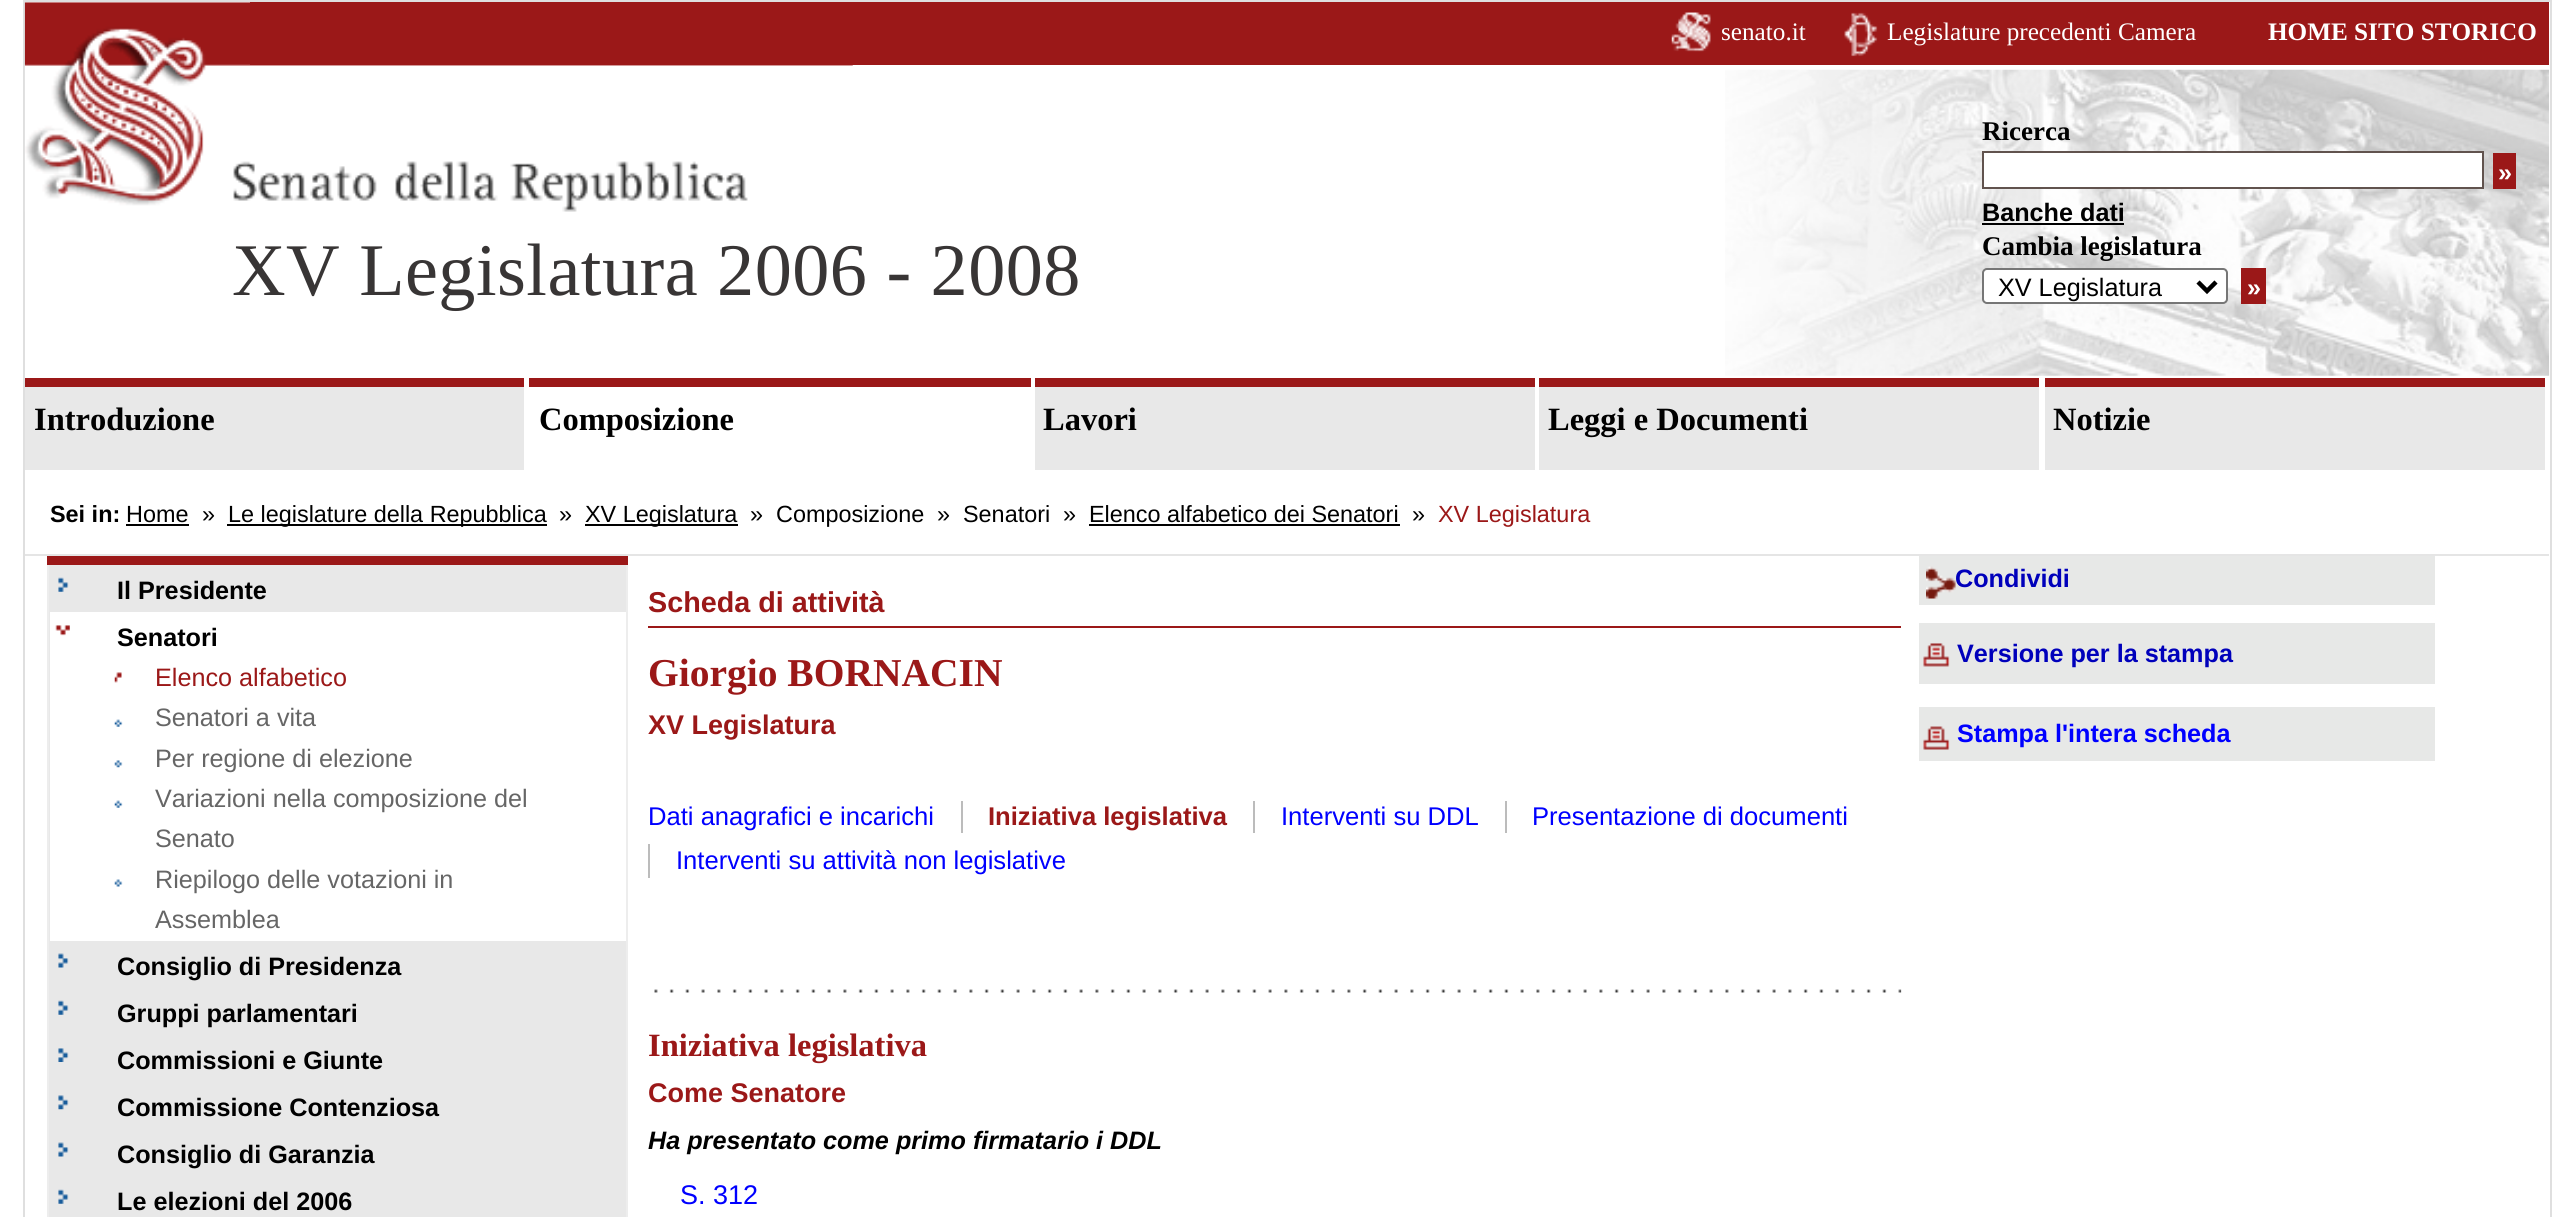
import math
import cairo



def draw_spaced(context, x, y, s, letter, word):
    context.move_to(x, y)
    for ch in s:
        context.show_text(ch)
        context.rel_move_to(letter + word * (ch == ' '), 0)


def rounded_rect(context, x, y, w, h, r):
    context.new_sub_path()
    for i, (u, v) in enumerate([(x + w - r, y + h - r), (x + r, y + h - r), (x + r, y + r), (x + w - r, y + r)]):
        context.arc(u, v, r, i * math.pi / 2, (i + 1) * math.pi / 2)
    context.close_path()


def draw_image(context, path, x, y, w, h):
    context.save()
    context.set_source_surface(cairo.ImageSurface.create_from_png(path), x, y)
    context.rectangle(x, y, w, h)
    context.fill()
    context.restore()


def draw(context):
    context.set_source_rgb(1, 1, 1)
    context.paint()
    context.rectangle(24, 1, 2527, 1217)
    context.set_source_rgb(223 / 255, 223 / 255, 223 / 255)
    context.stroke()
    draw_image(context, "images/1.png", 1725, 69, 825, 307)
    draw_image(context, "images/2.png", 24, 2, 829, 210)
    context.set_source_rgb(155 / 255, 24 / 255, 24 / 255)
    context.rectangle(250, 2, 2299, 63)
    context.fill()
    draw_image(context, "images/3.png", 1671, 12, 40, 40)
    draw_image(context, "images/4.png", 1844, 12, 34, 45)
    context.set_source_rgb(1, 1, 1)
    context.rectangle(1983, 152, 500, 36)
    context.fill_preserve()
    context.set_source_rgb(97 / 255, 83 / 255, 78 / 255)
    context.stroke()
    context.set_source_rgb(155 / 255, 24 / 255, 24 / 255)
    context.rectangle(2493, 153, 23, 36)
    context.fill()
    context.set_source_rgb(0, 0, 0)
    context.rectangle(1982, 223, 142, 2)
    context.fill()
    context.set_source_rgb(1, 1, 1)
    rounded_rect(context, 1983, 269, 244, 34, 4)
    context.fill_preserve()
    context.set_source_rgb(118 / 255, 118 / 255, 118 / 255)
    context.stroke()
    context.new_path()
    context.move_to(2198, 282)
    context.line_to(2207, 291)
    context.line_to(2216, 282)
    context.set_source_rgb(0, 0, 0)
    context.set_line_width(4.5)
    context.stroke()
    context.set_source_rgb(155 / 255, 24 / 255, 24 / 255)
    context.rectangle(2241, 268, 25, 36)
    context.fill()
    context.set_source_rgb(232 / 255, 232 / 255, 232 / 255)
    context.rectangle(25, 387, 499, 83)
    context.fill()
    context.set_source_rgb(155 / 255, 24 / 255, 24 / 255)
    context.rectangle(25, 378, 499, 9)
    context.fill()
    context.rectangle(529, 378, 502, 9)
    context.fill()
    context.set_source_rgb(232 / 255, 232 / 255, 232 / 255)
    context.rectangle(1035, 387, 500, 83)
    context.fill()
    context.set_source_rgb(155 / 255, 24 / 255, 24 / 255)
    context.rectangle(1035, 378, 500, 9)
    context.fill()
    context.set_source_rgb(232 / 255, 232 / 255, 232 / 255)
    context.rectangle(1539, 387, 500, 83)
    context.fill()
    context.set_source_rgb(155 / 255, 24 / 255, 24 / 255)
    context.rectangle(1539, 378, 500, 9)
    context.fill()
    context.set_source_rgb(232 / 255, 232 / 255, 232 / 255)
    context.rectangle(2045, 387, 500, 83)
    context.fill()
    context.set_source_rgb(155 / 255, 24 / 255, 24 / 255)
    context.rectangle(2045, 378, 500, 9)
    context.fill()
    context.set_source_rgb(229 / 255, 229 / 255, 229 / 255)
    context.rectangle(25, 554, 2524, 2)
    context.fill()
    context.set_source_rgb(0, 0, 0)
    context.rectangle(126, 524, 63, 2)
    context.fill()
    context.rectangle(227, 524, 320, 2)
    context.fill()
    context.rectangle(585, 524, 153, 2)
    context.fill()
    context.rectangle(1089, 524, 311, 2)
    context.fill()
    context.set_source_rgb(232 / 255, 232 / 255, 232 / 255)
    context.rectangle(49, 565, 577, 652)
    context.fill()
    context.set_source_rgb(155 / 255, 24 / 255, 24 / 255)
    context.rectangle(47, 556, 581, 9)
    context.fill()
    context.set_source_rgb(237 / 255, 237 / 255, 237 / 255)
    context.rectangle(626, 565, 2, 652)
    context.fill()
    context.rectangle(47, 565, 2, 652)
    context.fill()
    draw_image(context, "images/5.png", 58, 577, 11, 15)
    context.set_source_rgb(1, 1, 1)
    context.rectangle(50, 612, 576, 329)
    context.fill()
    draw_image(context, "images/6.png", 55, 625, 15, 11)
    draw_image(context, "images/7.png", 114, 672, 8, 11)
    draw_image(context, "images/8.png", 114, 719, 9, 8)
    draw_image(context, "images/9.png", 114, 760, 9, 8)
    draw_image(context, "images/8.png", 114, 800, 9, 8)
    draw_image(context, "images/10.png", 114, 879, 9, 8)
    draw_image(context, "images/11.png", 58, 953, 11, 15)
    draw_image(context, "images/5.png", 58, 1000, 11, 15)
    draw_image(context, "images/12.png", 58, 1048, 11, 14)
    draw_image(context, "images/13.png", 58, 1095, 11, 15)
    draw_image(context, "images/11.png", 58, 1142, 11, 15)
    draw_image(context, "images/5.png", 58, 1189, 11, 15)
    context.set_source_rgb(155 / 255, 24 / 255, 24 / 255)
    context.rectangle(648, 626, 1253, 2)
    context.fill()
    context.set_source_rgb(188 / 255, 188 / 255, 188 / 255)
    context.rectangle(961, 801, 2, 32)
    context.fill()
    context.rectangle(1253, 801, 2, 32)
    context.fill()
    context.rectangle(1505, 801, 2, 32)
    context.fill()
    context.rectangle(648, 844, 2, 34)
    context.fill()
    draw_image(context, "images/14.png", 654, 989, 1248, 4)
    context.set_source_rgb(231 / 255, 232 / 255, 231 / 255)
    context.rectangle(1919, 556, 516, 49)
    context.fill()
    draw_image(context, "images/15.png", 1926, 566, 30, 33)
    context.rectangle(1919, 623, 516, 61)
    context.fill()
    draw_image(context, "images/16.png", 1923, 643, 27, 24)
    context.rectangle(1919, 707, 516, 54)
    context.fill()
    draw_image(context, "images/17.png", 1923, 726, 27, 24)
    context.select_font_face("Liberation Serif")
    context.set_font_size(74.25)
    context.set_source_rgb(56 / 255, 53 / 255, 53 / 255)
    draw_spaced(context, 232, 295, "XV Legislatura 2006 - 2008", 0.45, 0)
    context.set_font_size(25.2)
    context.set_source_rgb(1, 1, 1)
    context.move_to(1721, 40)
    context.show_text("senato.it")
    context.move_to(1887, 40)
    context.show_text("Legislature precedenti Camera")
    context.select_font_face("Liberation Serif", cairo.FontSlant.NORMAL, cairo.FontWeight.BOLD)
    context.move_to(2268, 40)
    context.show_text("HOME SITO STORICO")
    context.set_font_size(27)
    context.set_source_rgb(0, 0, 0)
    context.move_to(1982, 140)
    context.show_text("Ricerca")
    context.select_font_face("Liberation Sans", cairo.FontSlant.NORMAL, cairo.FontWeight.BOLD)
    context.set_font_size(25.2)
    context.set_source_rgb(1, 1, 1)
    context.move_to(2498, 181)
    context.show_text("»")
    context.set_source_rgb(0, 0, 0)
    context.move_to(1982, 221)
    context.show_text("Banche dati")
    context.select_font_face("Liberation Serif", cairo.FontSlant.NORMAL, cairo.FontWeight.BOLD)
    context.set_font_size(27)
    context.move_to(1982, 255)
    context.show_text("Cambia legislatura")
    context.select_font_face("Liberation Sans")
    context.set_font_size(25.2)
    context.move_to(1998, 296)
    context.show_text("XV Legislatura")
    context.select_font_face("Liberation Sans", cairo.FontSlant.NORMAL, cairo.FontWeight.BOLD)
    context.set_source_rgb(1, 1, 1)
    context.move_to(2247, 296)
    context.show_text("»")
    context.select_font_face("Liberation Serif", cairo.FontSlant.NORMAL, cairo.FontWeight.BOLD)
    context.set_font_size(32.5)
    context.set_source_rgb(0, 0, 0)
    context.move_to(34, 430)
    context.show_text("Introduzione")
    context.move_to(539, 430)
    context.show_text("Composizione")
    context.move_to(1043, 430)
    context.show_text("Lavori")
    context.move_to(1548, 430)
    context.show_text("Leggi e Documenti")
    context.move_to(2053, 430)
    context.show_text("Notizie")
    context.select_font_face("Liberation Sans", cairo.FontSlant.NORMAL, cairo.FontWeight.BOLD)
    context.set_font_size(23.4)
    context.move_to(50, 522)
    context.show_text("Sei in:")
    context.select_font_face("Liberation Sans")
    context.move_to(126, 522)
    context.show_text("Home")
    context.move_to(202, 522)
    context.show_text("»")
    context.move_to(228, 522)
    context.show_text("Le legislature della Repubblica")
    context.move_to(559, 522)
    context.show_text("»")
    context.move_to(585, 522)
    context.show_text("XV Legislatura")
    context.move_to(750, 522)
    context.show_text("»")
    context.move_to(776, 522)
    context.show_text("Composizione")
    context.move_to(937, 522)
    context.show_text("»")
    context.move_to(963, 522)
    context.show_text("Senatori")
    context.move_to(1063, 522)
    context.show_text("»")
    context.move_to(1089, 522)
    context.show_text("Elenco alfabetico dei Senatori")
    context.move_to(1412, 522)
    context.show_text("»")
    context.set_source_rgb(155 / 255, 24 / 255, 24 / 255)
    context.move_to(1438, 522)
    context.show_text("XV Legislatura")
    context.select_font_face("Liberation Sans", cairo.FontSlant.NORMAL, cairo.FontWeight.BOLD)
    context.set_font_size(25.2)
    context.set_source_rgb(0, 0, 0)
    context.move_to(117, 599)
    context.show_text("Il Presidente")
    context.move_to(117, 646)
    context.show_text("Senatori")
    context.select_font_face("Liberation Sans")
    context.set_source_rgb(155 / 255, 24 / 255, 24 / 255)
    context.move_to(155, 686)
    context.show_text("Elenco alfabetico")
    context.set_source_rgb(102 / 255, 102 / 255, 102 / 255)
    context.move_to(155, 726)
    context.show_text("Senatori a vita")
    context.move_to(155, 767)
    context.show_text("Per regione di elezione")
    context.move_to(155, 807)
    context.show_text("Variazioni nella composizione del")
    context.move_to(155, 847)
    context.show_text("Senato")
    context.move_to(155, 888)
    context.show_text("Riepilogo delle votazioni in")
    context.move_to(155, 928)
    context.show_text("Assemblea")
    context.select_font_face("Liberation Sans", cairo.FontSlant.NORMAL, cairo.FontWeight.BOLD)
    context.set_source_rgb(0, 0, 0)
    context.move_to(117, 975)
    context.show_text("Consiglio di Presidenza")
    context.move_to(117, 1022)
    context.show_text("Gruppi parlamentari")
    context.move_to(117, 1069)
    context.show_text("Commissioni e Giunte")
    context.move_to(117, 1116)
    context.show_text("Commissione Contenziosa")
    context.move_to(117, 1163)
    context.show_text("Consiglio di Garanzia")
    context.move_to(117, 1210)
    context.show_text("Le elezioni del 2006")
    context.set_font_size(28.75)
    context.set_source_rgb(155 / 255, 24 / 255, 24 / 255)
    context.move_to(648, 612)
    context.show_text("Scheda di attività")
    context.select_font_face("Liberation Serif", cairo.FontSlant.NORMAL, cairo.FontWeight.BOLD)
    context.set_font_size(39.5)
    context.move_to(648, 686)
    context.show_text("Giorgio BORNACIN")
    context.select_font_face("Liberation Sans", cairo.FontSlant.NORMAL, cairo.FontWeight.BOLD)
    context.set_font_size(27)
    context.move_to(648, 734)
    context.show_text("XV Legislatura")
    context.select_font_face("Liberation Sans")
    context.set_font_size(25.6)
    context.set_source_rgb(0, 0, 1)
    context.move_to(648, 825)
    context.show_text("Dati anagrafici e incarichi")
    context.select_font_face("Liberation Sans", cairo.FontSlant.NORMAL, cairo.FontWeight.BOLD)
    context.set_source_rgb(155 / 255, 24 / 255, 24 / 255)
    context.move_to(988, 825)
    context.show_text("Iniziativa legislativa")
    context.select_font_face("Liberation Sans")
    context.set_source_rgb(0, 0, 1)
    context.move_to(1281, 825)
    context.show_text("Interventi su DDL")
    context.move_to(1532, 825)
    context.show_text("Presentazione di documenti")
    context.move_to(676, 869)
    context.show_text("Interventi su attività non legislative")
    context.select_font_face("Liberation Serif", cairo.FontSlant.NORMAL, cairo.FontWeight.BOLD)
    context.set_font_size(32.5)
    context.set_source_rgb(155 / 255, 24 / 255, 24 / 255)
    context.move_to(648, 1056)
    context.show_text("Iniziativa legislativa")
    context.select_font_face("Liberation Sans", cairo.FontSlant.NORMAL, cairo.FontWeight.BOLD)
    context.set_font_size(27)
    context.move_to(648, 1102)
    context.show_text("Come Senatore")
    context.select_font_face("Liberation Sans", cairo.FontSlant.ITALIC, cairo.FontWeight.BOLD)
    context.set_font_size(25.2)
    context.set_source_rgb(0, 0, 0)
    context.move_to(648, 1149)
    context.show_text("Ha presentato come primo firmatario i DDL")
    context.select_font_face("Liberation Sans")
    context.set_font_size(27)
    context.set_source_rgb(0, 0, 1)
    context.move_to(680, 1204)
    context.show_text("S. 312")
    context.select_font_face("Liberation Sans", cairo.FontSlant.NORMAL, cairo.FontWeight.BOLD)
    context.set_font_size(25.2)
    context.set_source_rgb(0, 0, 187 / 255)
    context.move_to(1955, 587)
    context.show_text("Condividi")
    context.move_to(1957, 662)
    context.show_text("Versione per la stampa")
    context.set_source_rgb(0, 0, 1)
    context.move_to(1957, 742)
    context.show_text("Stampa l'intera scheda")


surface = cairo.ImageSurface(cairo.Format.RGB24, 2573, 1217)
context = cairo.Context(surface)
options = cairo.FontOptions()
options.set_hint_metrics(cairo.HintMetrics.OFF)
options.set_hint_style(cairo.HintStyle.NONE)
context.set_font_options(options)
context.set_miter_limit(4)
draw(context)
surface.write_to_png("out.png")
